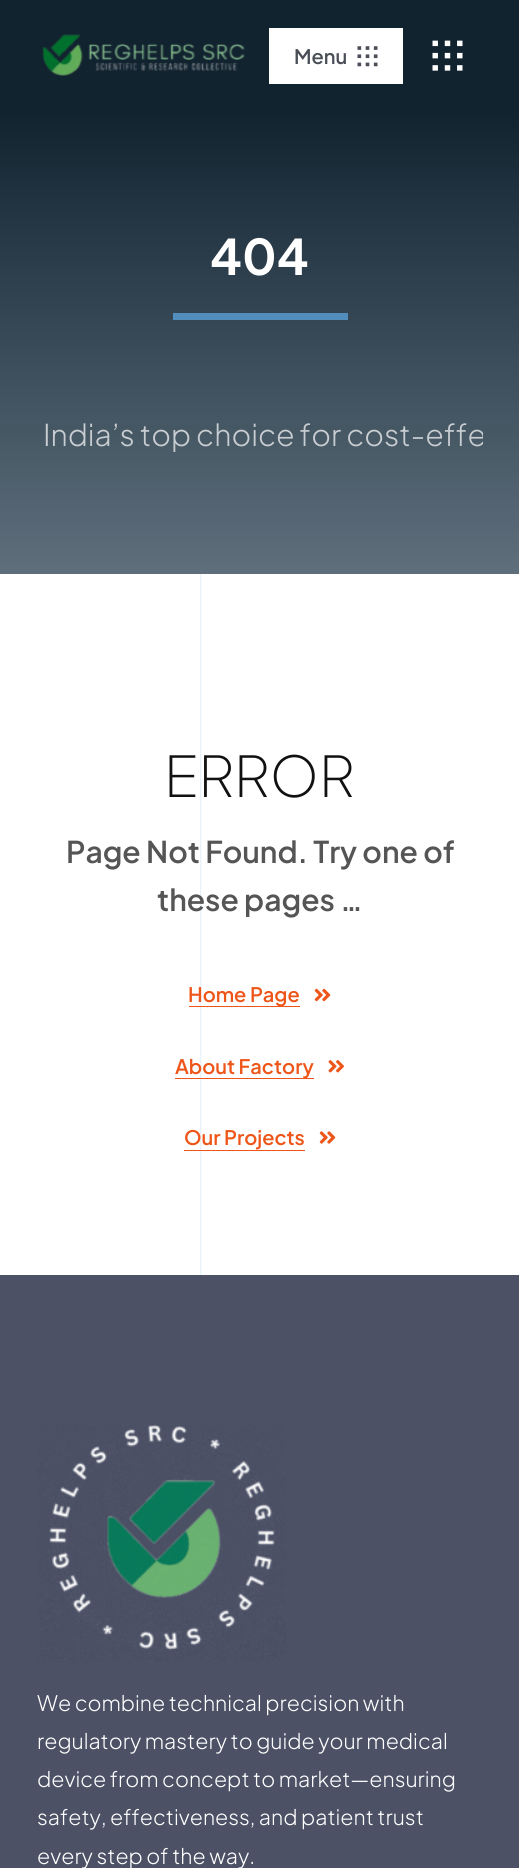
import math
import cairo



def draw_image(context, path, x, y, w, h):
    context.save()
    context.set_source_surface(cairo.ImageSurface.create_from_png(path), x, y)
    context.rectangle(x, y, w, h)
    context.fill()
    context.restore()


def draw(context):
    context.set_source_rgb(1, 1, 1)
    context.paint()
    context.set_source_rgb(18 / 255, 35 / 255, 48 / 255)
    context.rectangle(0, 0, 519, 111)
    context.fill()
    draw_image(context, "images/1.png", 42, 34, 203, 42)
    context.set_source_rgb(1, 1, 1)
    context.rectangle(269, 28, 134, 56)
    context.fill()
    draw_image(context, "images/2.png", 357, 46, 21, 21)
    draw_image(context, "images/3.png", 432, 40, 31, 31)
    draw_image(context, "images/4.png", 200, 573, 2, 702)
    gradient = cairo.LinearGradient(260, 111, 260, 574)
    gradient.add_color_stop_rgba(0, 18 / 255, 35 / 255, 48 / 255, 1)
    gradient.add_color_stop_rgba(1, 25 / 255, 48 / 255, 67 / 255, 0.7)
    context.set_source(gradient)
    context.rectangle(0, 111, 519, 463)
    context.fill()
    context.set_source_rgb(81 / 255, 141 / 255, 189 / 255)
    context.rectangle(173, 313, 175, 7)
    context.fill()
    context.set_source_rgb(238 / 255, 85 / 255, 25 / 255)
    context.rectangle(189, 1006, 111, 1)
    context.fill()
    draw_image(context, "images/5.png", 314, 988, 17, 14)
    context.rectangle(175, 1078, 139, 1)
    context.fill()
    draw_image(context, "images/6.png", 328, 1060, 16, 13)
    context.rectangle(184, 1150, 121, 1)
    context.fill()
    draw_image(context, "images/7.png", 319, 1131, 17, 13)
    context.set_source_rgb(76 / 255, 81 / 255, 102 / 255)
    context.rectangle(0, 1275, 519, 593)
    context.fill()
    draw_image(context, "images/8.png", 38, 1425, 248, 237)
    context.select_font_face("Plus Jakarta Sans SemiBold")
    context.set_font_size(20)
    context.set_source_rgb(74 / 255, 78 / 255, 87 / 255)
    context.move_to(294, 64)
    context.show_text("Menu")
    context.select_font_face("Plus Jakarta Sans", cairo.FontSlant.NORMAL, cairo.FontWeight.BOLD)
    context.set_font_size(49)
    context.set_source_rgb(1, 1, 1)
    context.move_to(210, 275)
    context.show_text("404")
    context.save()
    context.rectangle(38, 408, 445, 53)
    context.clip()
    context.select_font_face("Plus Jakarta Sans Light")
    context.set_font_size(30)
    context.set_source_rgb(200 / 255, 205 / 255, 209 / 255)
    context.move_to(43, 446)
    context.show_text("India’s top choice for cost-effe")
    context.restore()
    context.select_font_face("Plus Jakarta Sans ExtraLight")
    context.set_font_size(56)
    context.set_source_rgb(17 / 255, 17 / 255, 17 / 255)
    context.move_to(164, 797)
    context.show_text("ERROR")
    context.select_font_face("Plus Jakarta Sans SemiBold")
    context.set_font_size(30)
    context.set_source_rgb(85 / 255, 85 / 255, 85 / 255)
    context.move_to(66, 863)
    context.show_text("Page Not Found. Try one of")
    context.move_to(157, 911)
    context.show_text("these pages …")
    context.set_font_size(20)
    context.set_source_rgb(238 / 255, 85 / 255, 25 / 255)
    context.move_to(188, 1002)
    context.show_text("Home Page")
    context.move_to(175, 1074)
    context.show_text("About Factory")
    context.move_to(184, 1145)
    context.show_text("Our Projects")
    context.select_font_face("Plus Jakarta Sans Light")
    context.set_font_size(21.25)
    context.set_source_rgb(1, 1, 1)
    context.move_to(37, 1711)
    context.show_text("We combine technical precision with")
    context.move_to(37, 1749)
    context.show_text("regulatory mastery to guide your medical")
    context.move_to(37, 1787)
    context.show_text("device from concept to market—ensuring")
    context.move_to(37, 1825)
    context.show_text("safety, effectiveness, and patient trust")
    context.move_to(37, 1864)
    context.show_text("every step of the way.")


surface = cairo.ImageSurface(cairo.Format.RGB24, 519, 1868)
context = cairo.Context(surface)
options = cairo.FontOptions()
options.set_hint_metrics(cairo.HintMetrics.OFF)
options.set_hint_style(cairo.HintStyle.NONE)
context.set_font_options(options)
context.set_miter_limit(4)
draw(context)
surface.write_to_png("out.png")
